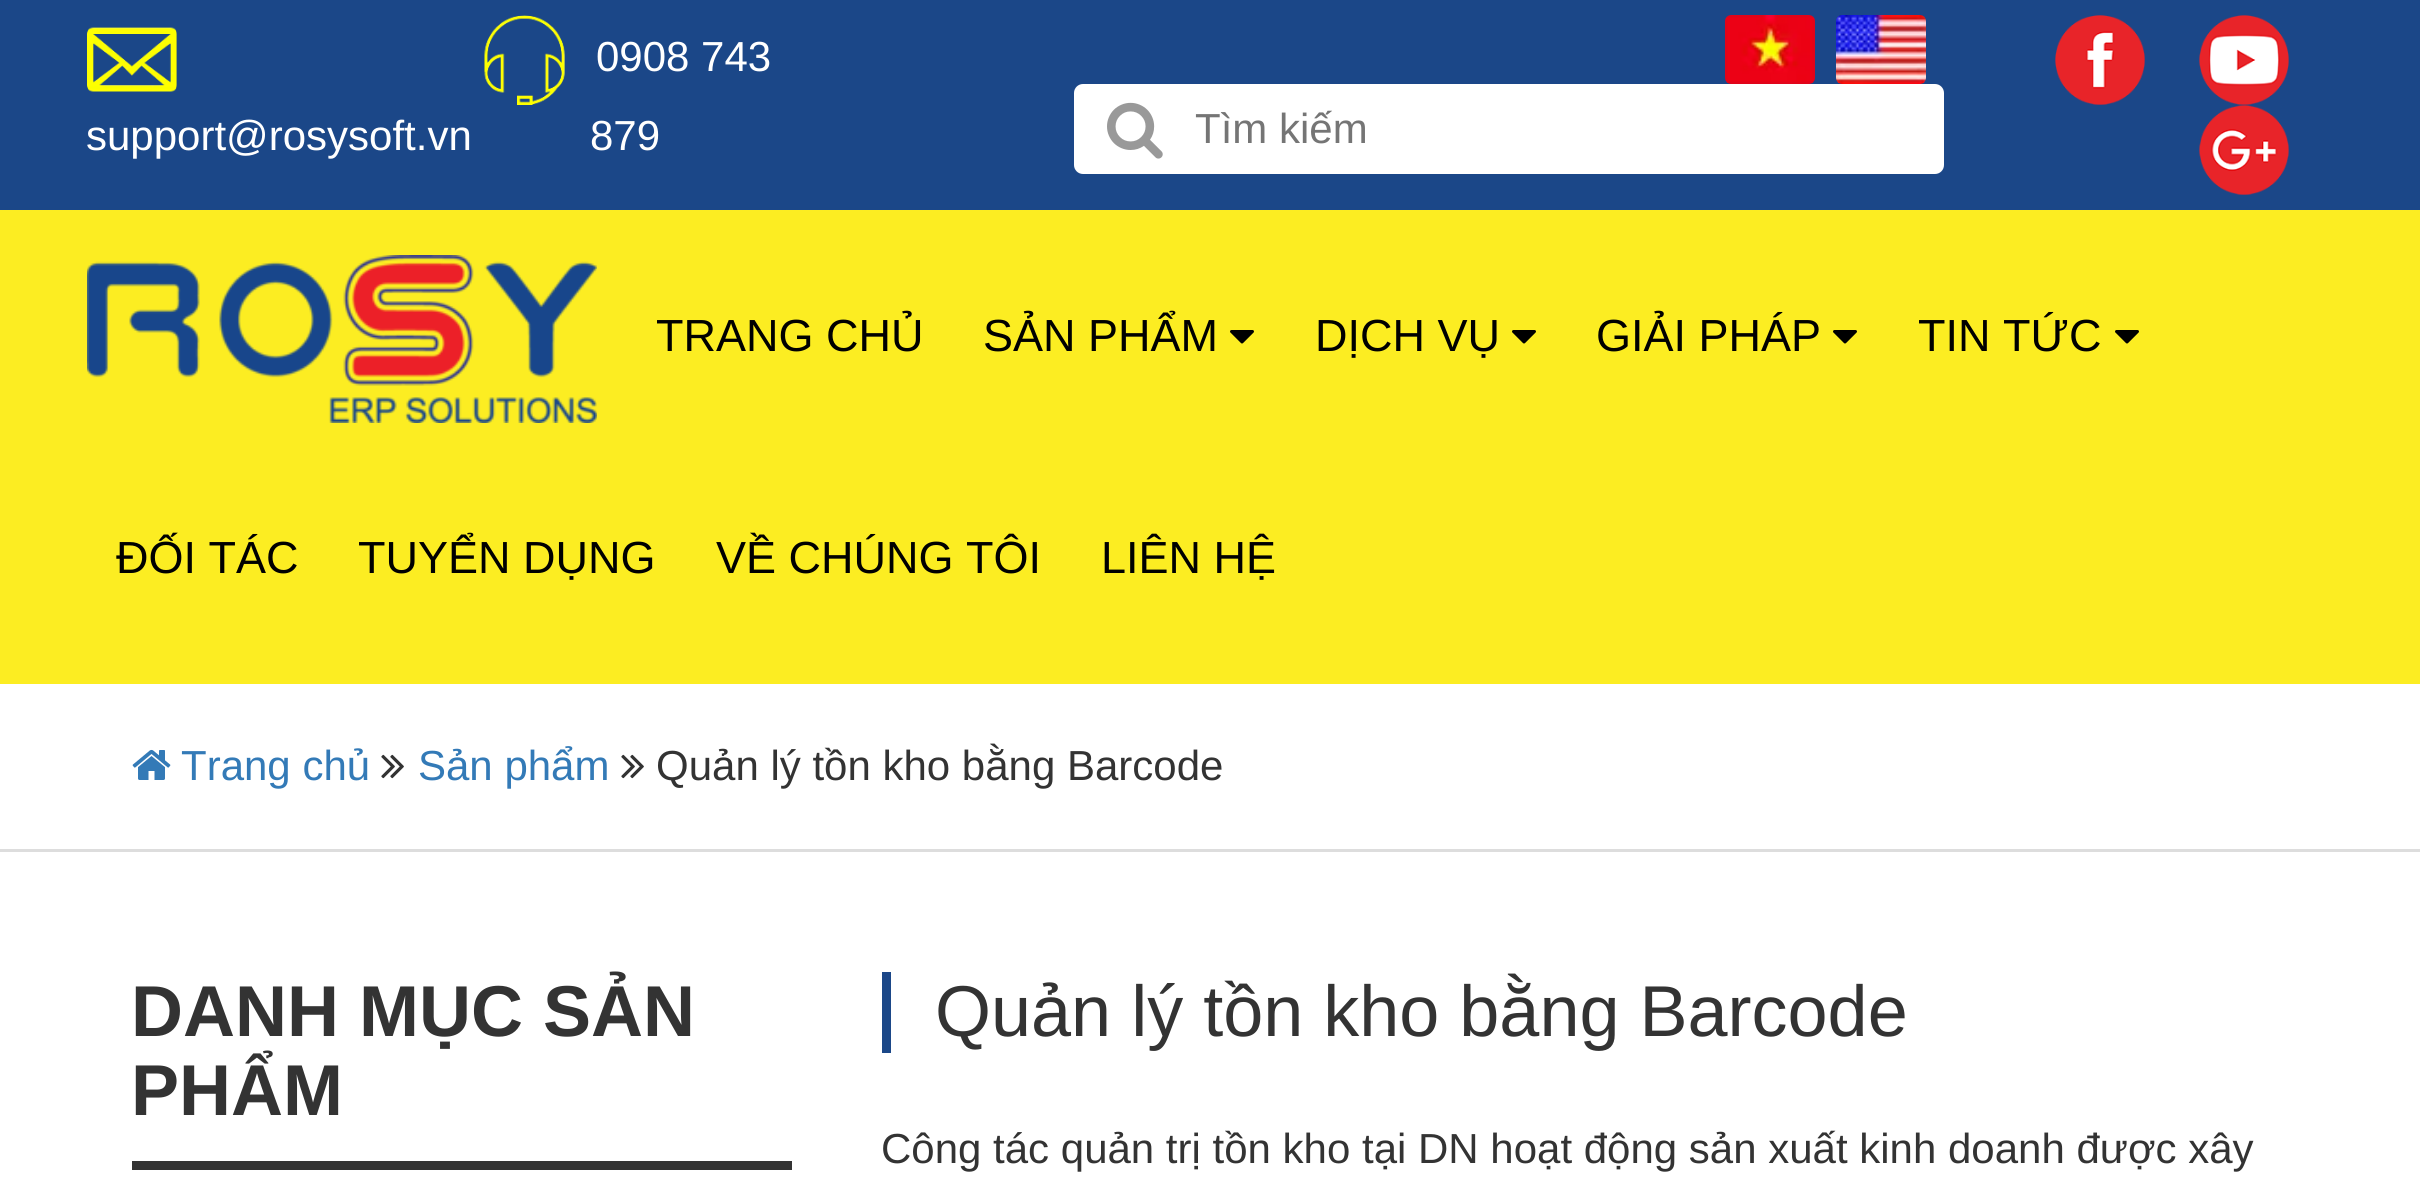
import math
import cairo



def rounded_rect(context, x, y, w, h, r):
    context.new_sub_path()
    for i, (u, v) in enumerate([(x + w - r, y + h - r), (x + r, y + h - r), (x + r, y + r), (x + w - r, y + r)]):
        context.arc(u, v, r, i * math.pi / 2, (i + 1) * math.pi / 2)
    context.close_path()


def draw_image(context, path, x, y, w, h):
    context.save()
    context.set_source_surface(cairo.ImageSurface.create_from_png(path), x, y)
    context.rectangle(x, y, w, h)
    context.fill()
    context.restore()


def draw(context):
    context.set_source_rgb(1, 1, 1)
    context.paint()
    context.set_source_rgb(27 / 255, 71 / 255, 136 / 255)
    context.rectangle(0, 0, 2420, 210)
    context.fill()
    draw_image(context, "images/1.png", 87, 27, 90, 65)
    draw_image(context, "images/2.png", 484, 15, 81, 90)
    draw_image(context, "images/3.png", 1725, 15, 90, 69)
    draw_image(context, "images/4.png", 1836, 15, 90, 69)
    context.set_source_rgb(1, 1, 1)
    rounded_rect(context, 1074, 84, 870, 90, 9)
    context.fill()
    draw_image(context, "images/5.png", 1107, 102, 56, 57)
    draw_image(context, "images/6.png", 2055, 15, 90, 90)
    draw_image(context, "images/7.png", 2199, 15, 90, 90)
    draw_image(context, "images/8.png", 2199, 105, 90, 90)
    context.set_source_rgb(252 / 255, 237 / 255, 34 / 255)
    context.rectangle(0, 210, 2420, 474)
    context.fill()
    draw_image(context, "images/9.png", 87, 255, 510, 168)
    draw_image(context, "images/10.png", 1230, 330, 24, 14)
    draw_image(context, "images/10.png", 1512, 330, 24, 14)
    draw_image(context, "images/10.png", 1833, 330, 24, 14)
    draw_image(context, "images/10.png", 2115, 330, 24, 14)
    context.set_source_rgb(221 / 255, 221 / 255, 221 / 255)
    context.rectangle(0, 849, 2420, 3)
    context.fill()
    draw_image(context, "images/11.png", 132, 749, 39, 31)
    draw_image(context, "images/12.png", 381, 754, 23, 25)
    draw_image(context, "images/12.png", 621, 754, 23, 25)
    context.set_source_rgb(51 / 255, 51 / 255, 51 / 255)
    context.rectangle(132, 1161, 660, 9)
    context.fill()
    context.set_source_rgb(27 / 255, 71 / 255, 136 / 255)
    context.rectangle(882, 972, 9, 81)
    context.fill()
    context.select_font_face("Liberation Sans")
    context.set_font_size(42)
    context.set_source_rgb(1, 1, 1)
    context.move_to(86, 150)
    context.show_text("support@rosysoft.vn")
    context.move_to(596, 71)
    context.show_text("0908 743")
    context.move_to(590, 150)
    context.show_text("879")
    context.set_source_rgb(117 / 255, 117 / 255, 117 / 255)
    context.move_to(1195, 143)
    context.show_text("Tìm kiếm")
    context.set_font_size(45)
    context.set_source_rgb(0, 0, 0)
    context.move_to(656, 351)
    context.show_text("TRANG CHỦ")
    context.move_to(983, 351)
    context.show_text("SẢN PHẨM")
    context.move_to(1315, 351)
    context.show_text("DỊCH VỤ")
    context.move_to(1596, 351)
    context.show_text("GIẢI PHÁP")
    context.move_to(1918, 351)
    context.show_text("TIN TỨC")
    context.move_to(116, 573)
    context.show_text("ĐỐI TÁC")
    context.move_to(358, 573)
    context.show_text("TUYỂN DỤNG")
    context.move_to(716, 573)
    context.show_text("VỀ CHÚNG TÔI")
    context.move_to(1101, 573)
    context.show_text("LIÊN HỆ")
    context.set_font_size(42)
    context.set_source_rgb(51 / 255, 122 / 255, 183 / 255)
    context.move_to(181, 780)
    context.show_text("Trang chủ")
    context.move_to(418, 780)
    context.show_text("Sản phẩm")
    context.set_source_rgb(51 / 255, 51 / 255, 51 / 255)
    context.move_to(656, 780)
    context.show_text("Quản lý tồn kho bằng Barcode")
    context.select_font_face("Liberation Sans", cairo.FontSlant.NORMAL, cairo.FontWeight.BOLD)
    context.set_font_size(72)
    context.move_to(131, 1036)
    context.show_text("DANH MỤC SẢN")
    context.move_to(131, 1115)
    context.show_text("PHẨM")
    context.select_font_face("Liberation Sans")
    context.move_to(935, 1036)
    context.show_text("Quản lý tồn kho bằng Barcode")
    context.set_font_size(42)
    context.move_to(881, 1163)
    context.show_text("Công tác quản trị tồn kho tại DN hoạt động sản xuất kinh doanh được xây")


surface = cairo.ImageSurface(cairo.Format.RGB24, 2420, 1180)
context = cairo.Context(surface)
options = cairo.FontOptions()
options.set_hint_metrics(cairo.HintMetrics.OFF)
options.set_hint_style(cairo.HintStyle.NONE)
context.set_font_options(options)
context.set_miter_limit(4)
draw(context)
surface.write_to_png("out.png")
